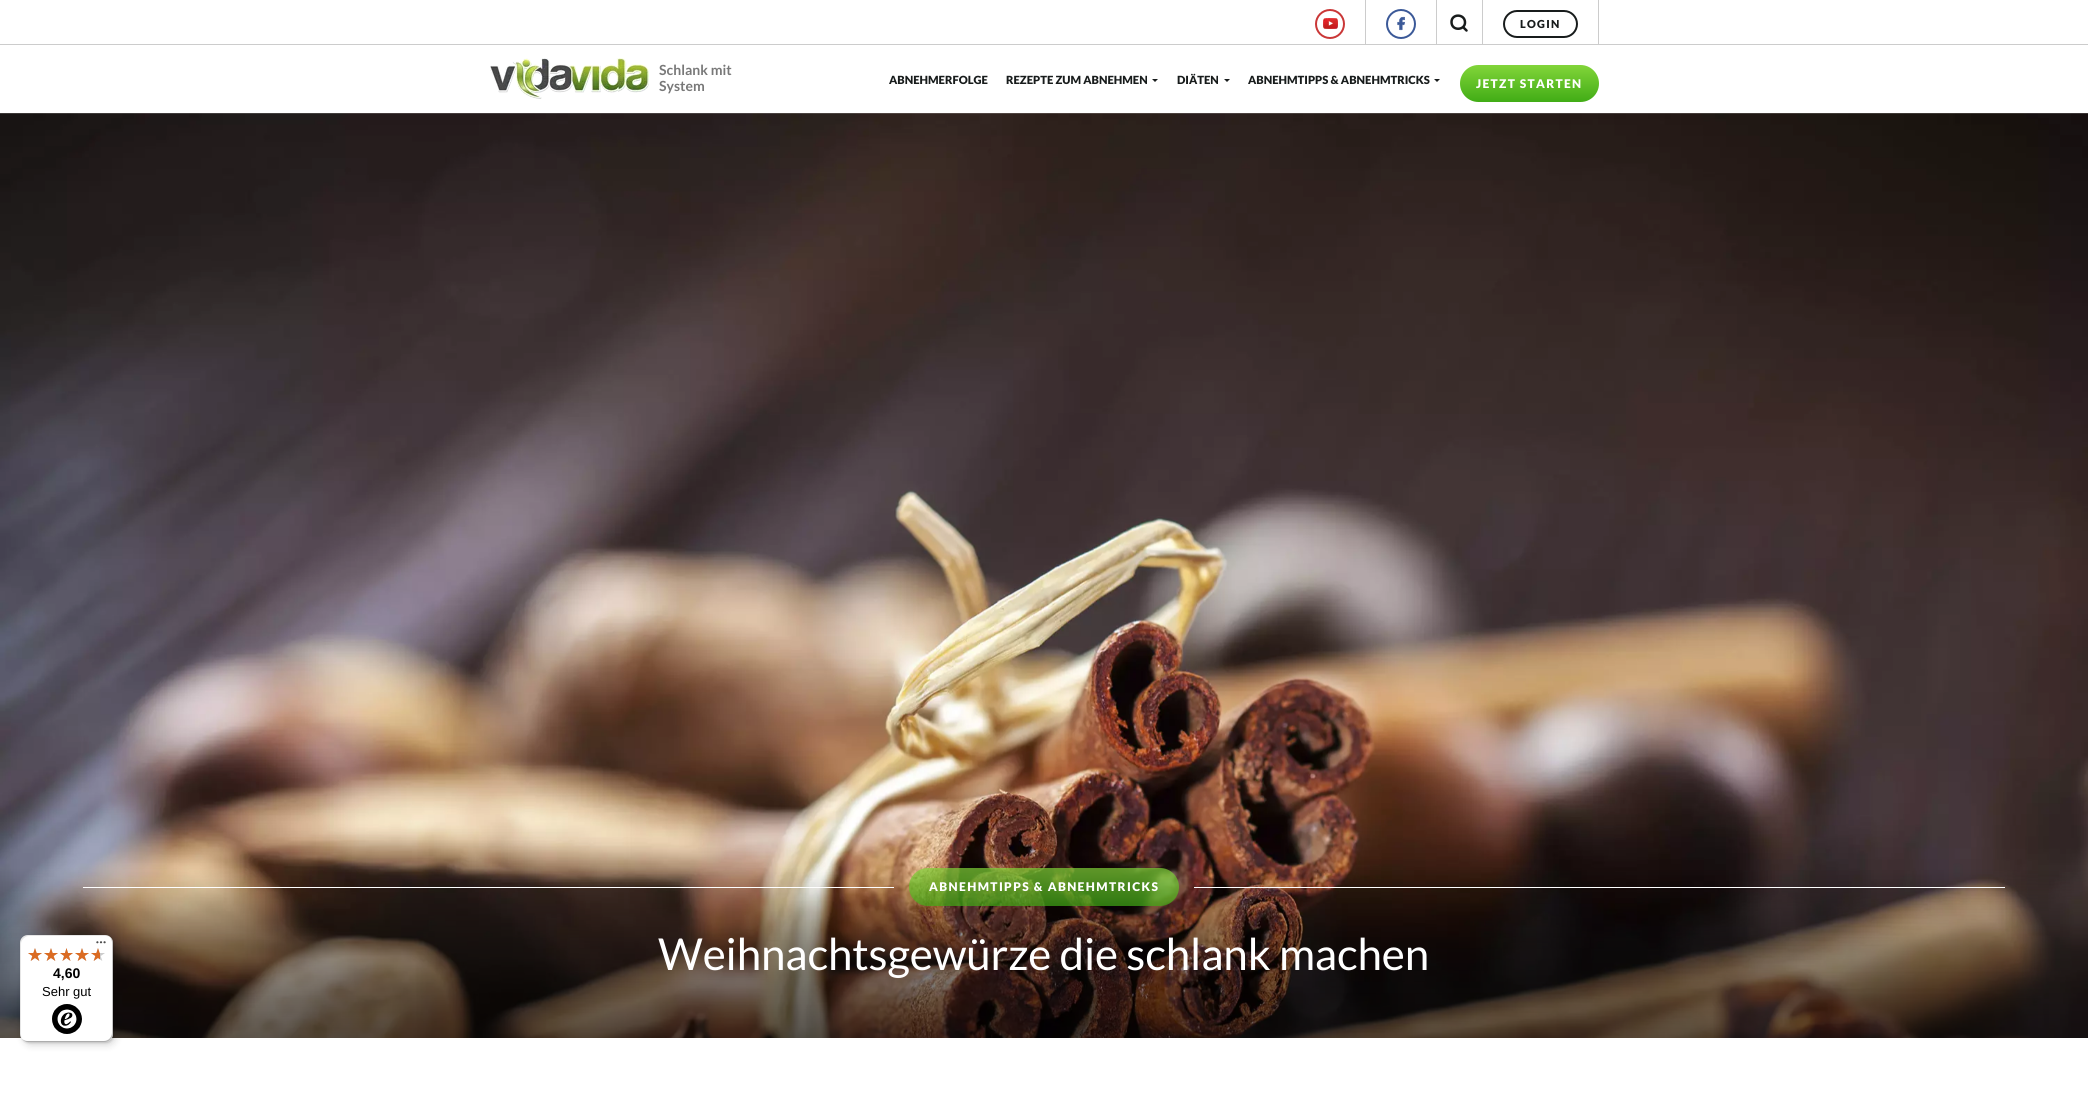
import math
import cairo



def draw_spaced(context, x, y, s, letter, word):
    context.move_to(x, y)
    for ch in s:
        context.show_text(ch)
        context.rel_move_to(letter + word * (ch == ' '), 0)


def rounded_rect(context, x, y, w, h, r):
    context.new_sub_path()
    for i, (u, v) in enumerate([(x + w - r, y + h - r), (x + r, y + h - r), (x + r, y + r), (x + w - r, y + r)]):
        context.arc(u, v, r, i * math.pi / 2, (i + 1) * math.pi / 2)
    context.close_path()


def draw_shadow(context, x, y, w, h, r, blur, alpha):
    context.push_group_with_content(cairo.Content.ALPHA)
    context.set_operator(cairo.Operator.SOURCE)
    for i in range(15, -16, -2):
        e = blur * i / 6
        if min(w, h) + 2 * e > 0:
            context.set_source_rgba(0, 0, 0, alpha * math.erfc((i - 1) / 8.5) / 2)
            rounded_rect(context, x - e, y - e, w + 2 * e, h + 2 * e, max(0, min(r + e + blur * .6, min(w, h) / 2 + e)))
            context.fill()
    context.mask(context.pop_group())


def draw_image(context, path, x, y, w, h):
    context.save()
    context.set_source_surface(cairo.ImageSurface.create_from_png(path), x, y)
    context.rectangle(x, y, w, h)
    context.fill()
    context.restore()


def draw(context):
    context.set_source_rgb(1, 1, 1)
    context.paint()
    context.set_source_rgb(204 / 255, 204 / 255, 204 / 255)
    context.rectangle(0, 44, 2088, 1)
    context.fill()
    context.rectangle(1365, 0, 1, 44)
    context.fill()
    draw_image(context, "images/1.png", 1323, 18, 15, 11)
    context.arc(1330, 24, 14, 0, 2 * math.pi)
    context.set_source_rgb(202 / 255, 55 / 255, 55 / 255)
    context.stroke()
    context.set_source_rgb(204 / 255, 204 / 255, 204 / 255)
    context.rectangle(1436, 0, 1, 44)
    context.fill()
    context.arc(1401, 24, 14, 0, 2 * math.pi)
    context.set_source_rgb(59 / 255, 89 / 255, 152 / 255)
    context.stroke()
    draw_image(context, "images/2.png", 1397, 16, 8, 15)
    context.set_source_rgb(204 / 255, 204 / 255, 204 / 255)
    context.rectangle(1482, 0, 1, 44)
    context.fill()
    context.new_path()
    context.move_to(1463, 27)
    context.line_to(1466.5, 30.5)
    context.move_to(1451.5, 22)
    context.curve_to(1451.5, 31.5, 1465.5, 30.5, 1465, 22)
    context.curve_to(1464.5, 13.5, 1451.5, 13.5, 1451.5, 22)
    context.close_path()
    context.set_source_rgb(24 / 255, 28 / 255, 28 / 255)
    context.set_line_width(2.5)
    context.set_line_cap(cairo.LineCap.ROUND)
    context.set_line_join(cairo.LineJoin.ROUND)
    context.stroke()
    context.set_source_rgb(204 / 255, 204 / 255, 204 / 255)
    context.rectangle(1598, 0, 1, 44)
    context.fill()
    rounded_rect(context, 1504, 11, 73, 26, 13)
    context.set_source_rgb(24 / 255, 28 / 255, 28 / 255)
    context.set_line_width(2)
    context.set_line_cap(cairo.LineCap.BUTT)
    context.set_line_join(cairo.LineJoin.MITER)
    context.stroke()
    draw_image(context, "images/3.png", 490, 58, 159, 41)
    context.new_path()
    context.move_to(1152, 79)
    context.line_to(1158, 79)
    context.line_to(1155, 82)
    context.close_path()
    context.fill()
    context.new_path()
    context.move_to(1224, 79)
    context.line_to(1230, 79)
    context.line_to(1227, 82)
    context.close_path()
    context.fill()
    context.new_path()
    context.move_to(1434, 79)
    context.line_to(1440, 79)
    context.line_to(1437, 82)
    context.close_path()
    context.fill()
    gradient = cairo.LinearGradient(1530, 65, 1530, 102)
    gradient.add_color_stop_rgba(0, 130 / 255, 213 / 255, 57 / 255, 1)
    gradient.add_color_stop_rgba(1, 65 / 255, 172 / 255, 22 / 255, 1)
    context.set_source(gradient)
    rounded_rect(context, 1460, 65, 139, 37, 18.5)
    context.fill()
    draw_image(context, "images/4.png", 0, 113, 2088, 925)
    context.set_source_rgb(1, 1, 1)
    context.rectangle(83, 887, 811, 1)
    context.fill()
    context.rectangle(1194, 887, 811, 1)
    context.fill()
    context.set_source_rgb(0, 0, 0)
    draw_shadow(context, 23, 938, 93, 107, 8, 4, 0.15)
    draw_shadow(context, 21, 936, 93, 107, 8, 1, 0.15)
    context.set_source_rgb(1, 1, 1)
    rounded_rect(context, 20, 935, 93, 107, 8)
    context.fill()
    context.set_source_rgba(0, 0, 0, 0.1)
    context.new_path()
    context.move_to(29, 936)
    context.line_to(106, 936)
    context.curve_to(108, 936, 110, 937, 112, 939)
    context.curve_to(110, 937, 108, 935, 105, 935)
    context.line_to(28, 935)
    context.curve_to(24, 935, 20, 939, 20, 943)
    context.line_to(20, 1034)
    context.curve_to(20, 1037, 22, 1039, 24, 1041)
    context.curve_to(22, 1039, 21, 1037, 21, 1035)
    context.line_to(21, 944)
    context.curve_to(21, 940, 25, 936, 29, 936)
    context.close_path()
    context.fill()
    context.set_source_rgba(0, 0, 0, 0.2)
    context.new_path()
    context.move_to(21, 1038)
    context.curve_to(23, 1040, 25, 1042, 28, 1042)
    context.line_to(105, 1042)
    context.curve_to(109, 1042, 113, 1038, 113, 1034)
    context.line_to(113, 943)
    context.curve_to(113, 940, 111, 938, 109, 936)
    context.curve_to(111, 938, 112, 940, 112, 942)
    context.line_to(112, 1033)
    context.curve_to(112, 1037, 108, 1041, 104, 1041)
    context.line_to(27, 1041)
    context.curve_to(25, 1041, 23, 1040, 21, 1038)
    context.close_path()
    context.fill()
    context.set_source_rgba(50 / 255, 50 / 255, 50 / 255, 0.2)
    context.new_path()
    context.move_to(22, 1039)
    context.curve_to(23, 1041, 26, 1042, 28, 1042)
    context.line_to(105, 1042)
    context.curve_to(109, 1042, 113, 1038, 113, 1034)
    context.line_to(113, 943)
    context.curve_to(113, 941, 112, 938, 110, 937)
    context.curve_to(111, 938, 112, 940, 112, 942)
    context.line_to(112, 1033)
    context.curve_to(112, 1038, 109, 1041, 104, 1041)
    context.line_to(27, 1041)
    context.curve_to(25, 1041, 23, 1040, 22, 1039)
    context.close_path()
    context.fill()
    context.set_source_rgba(1, 1, 1, 0.3)
    context.new_path()
    context.move_to(104, 1042)
    context.line_to(105, 1042)
    context.curve_to(109, 1042, 113, 1038, 113, 1034)
    context.line_to(113, 943)
    context.curve_to(113, 941, 112, 938, 110, 937)
    context.curve_to(111, 938, 112, 940, 112, 942)
    context.line_to(112, 1034)
    context.curve_to(112, 1038, 109, 1042, 104, 1042)
    context.close_path()
    context.fill()
    draw_image(context, "images/5.png", 96, 941, 10, 3)
    draw_image(context, "images/6.png", 28, 948, 14, 13)
    draw_image(context, "images/6.png", 44, 948, 14, 13)
    draw_image(context, "images/7.png", 60, 948, 13, 13)
    draw_image(context, "images/6.png", 75, 948, 14, 13)
    draw_image(context, "images/6.png", 91, 948, 14, 13)
    draw_image(context, "images/8.png", 28, 948, 14, 13)
    draw_image(context, "images/8.png", 44, 948, 14, 13)
    draw_image(context, "images/9.png", 60, 948, 13, 13)
    draw_image(context, "images/8.png", 75, 948, 14, 13)
    draw_image(context, "images/10.png", 91, 948, 9, 13)
    draw_image(context, "images/11.png", 52, 1004, 30, 30)
    context.select_font_face("Lato Black")
    context.set_font_size(11)
    context.set_source_rgb(24 / 255, 28 / 255, 28 / 255)
    draw_spaced(context, 1520, 28, "LOGIN", 1.3, 0)
    context.select_font_face("Lato", cairo.FontSlant.NORMAL, cairo.FontWeight.BOLD)
    context.set_font_size(14)
    context.set_source_rgb(120 / 255, 120 / 255, 120 / 255)
    context.move_to(659, 75)
    context.show_text("Schlank mit")
    context.move_to(659, 91)
    context.show_text("System")
    context.select_font_face("Lato Black")
    context.set_font_size(11.25)
    context.set_source_rgb(24 / 255, 28 / 255, 28 / 255)
    context.move_to(889, 84)
    context.show_text("ABNEHMERFOLGE")
    context.move_to(1006, 84)
    context.show_text("REZEPTE ZUM ABNEHMEN")
    context.move_to(1177, 84)
    context.show_text("DIÄTEN")
    context.move_to(1248, 84)
    context.show_text("ABNEHMTIPPS & ABNEHMTRICKS")
    context.set_font_size(12)
    context.set_source_rgb(1, 1, 1)
    draw_spaced(context, 1476, 88, "JETZT STARTEN", 1.3, 0)
    draw_spaced(context, 929, 891, "ABNEHMTIPPS & ABNEHMTRICKS", 1.4, 0)
    context.select_font_face("Lato")
    context.set_font_size(44)
    draw_spaced(context, 658, 970, "Weihnachtsgewürze die schlank machen", -0.15, 0)
    context.select_font_face("Liberation Sans", cairo.FontSlant.NORMAL, cairo.FontWeight.BOLD)
    context.set_font_size(14)
    context.set_source_rgb(0, 0, 0)
    context.move_to(53, 978)
    context.show_text("4,60")
    context.select_font_face("Liberation Sans")
    context.set_font_size(13)
    context.move_to(42, 996)
    context.show_text("Sehr gut")


surface = cairo.ImageSurface(cairo.Format.RGB24, 2088, 1096)
context = cairo.Context(surface)
options = cairo.FontOptions()
options.set_hint_metrics(cairo.HintMetrics.OFF)
options.set_hint_style(cairo.HintStyle.NONE)
context.set_font_options(options)
context.set_miter_limit(4)
draw(context)
surface.write_to_png("out.png")
